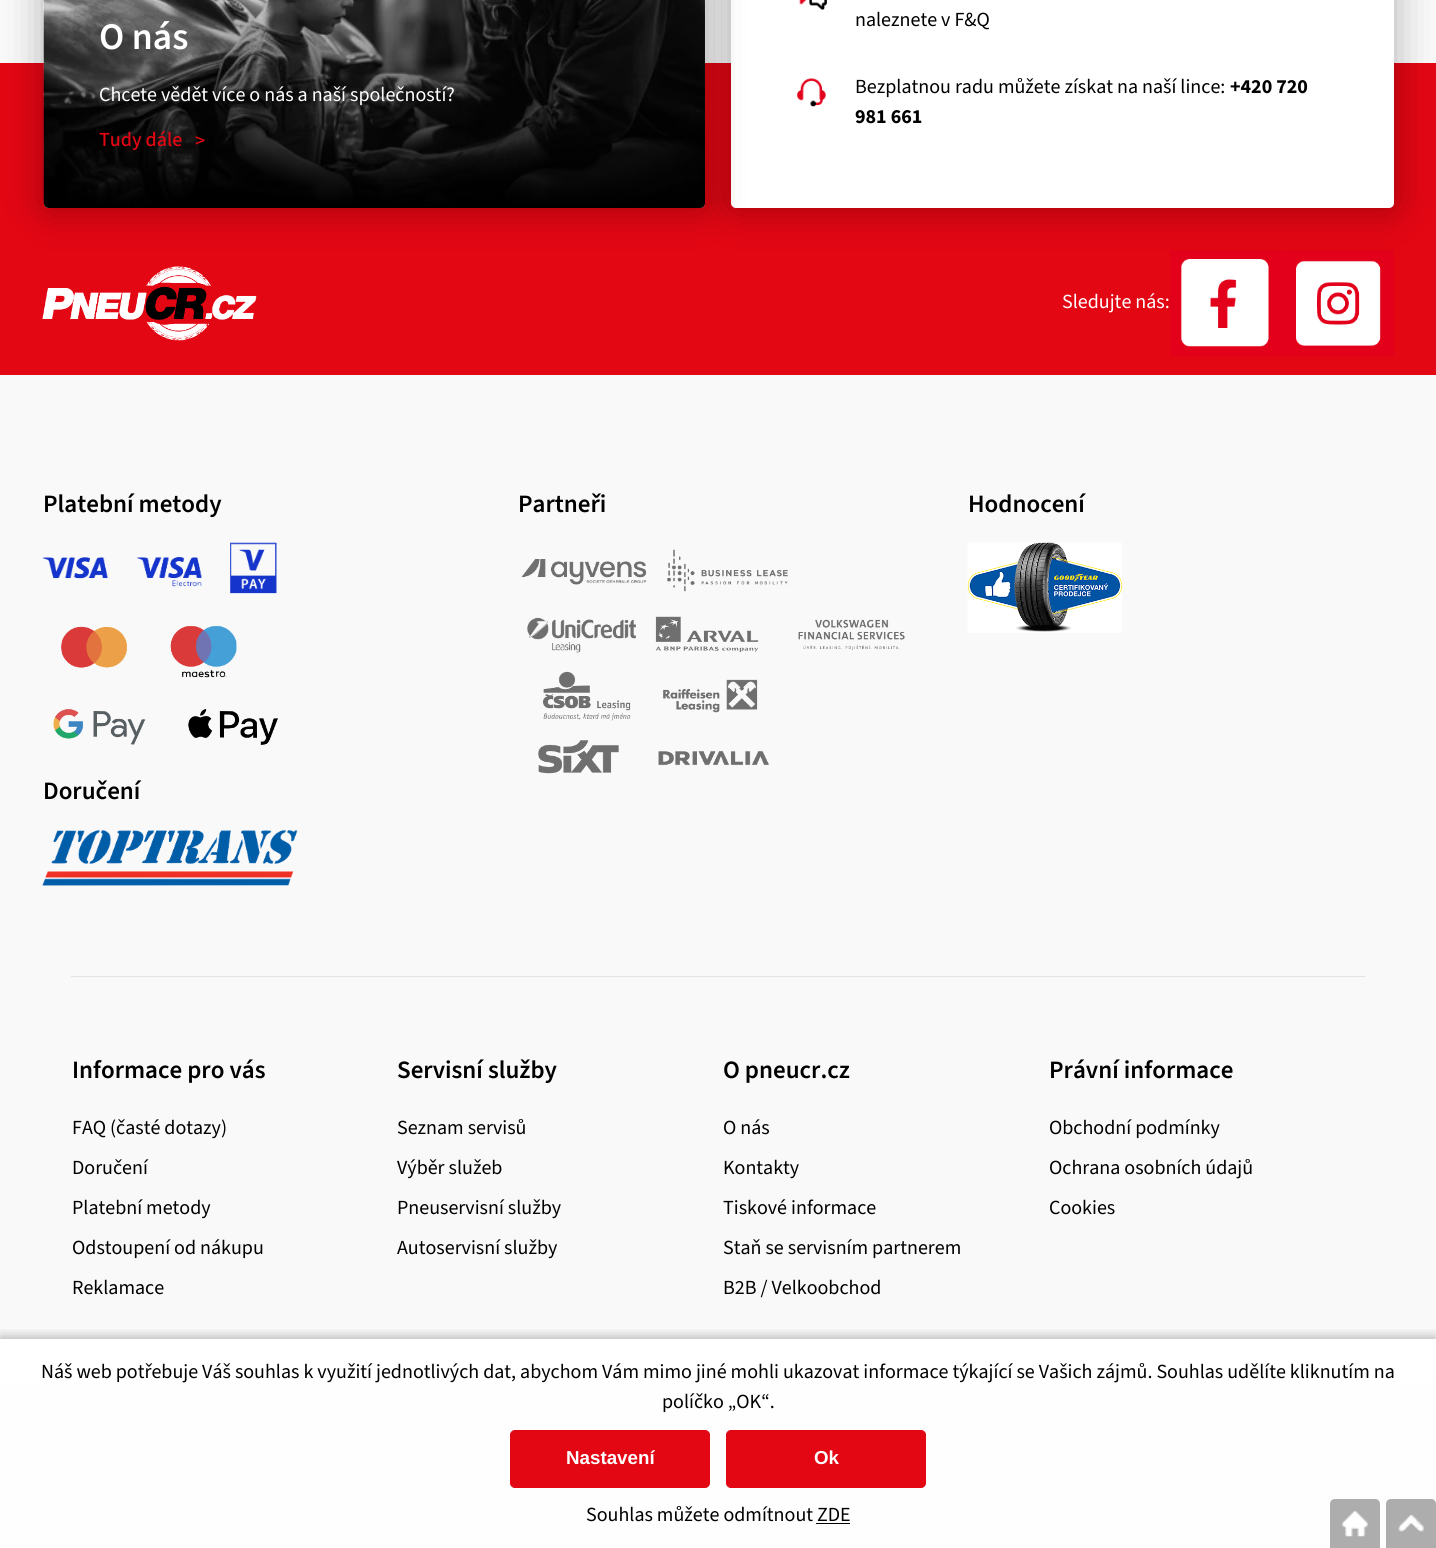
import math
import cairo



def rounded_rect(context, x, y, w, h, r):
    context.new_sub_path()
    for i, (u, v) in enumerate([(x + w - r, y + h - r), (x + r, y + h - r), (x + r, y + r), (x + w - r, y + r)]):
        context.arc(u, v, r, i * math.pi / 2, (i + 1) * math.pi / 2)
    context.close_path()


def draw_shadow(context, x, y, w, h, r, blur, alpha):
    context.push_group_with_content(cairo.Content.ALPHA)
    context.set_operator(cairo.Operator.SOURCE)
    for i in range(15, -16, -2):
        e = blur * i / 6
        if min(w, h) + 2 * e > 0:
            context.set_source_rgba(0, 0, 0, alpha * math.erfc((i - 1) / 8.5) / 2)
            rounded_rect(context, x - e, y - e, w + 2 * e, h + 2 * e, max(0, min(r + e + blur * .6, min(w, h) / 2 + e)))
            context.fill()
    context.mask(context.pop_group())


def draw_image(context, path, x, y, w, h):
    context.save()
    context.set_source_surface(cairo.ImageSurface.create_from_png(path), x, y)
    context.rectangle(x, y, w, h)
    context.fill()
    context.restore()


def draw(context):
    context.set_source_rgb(249 / 255, 249 / 255, 249 / 255)
    context.paint()
    context.set_source_rgb(1, 1, 1)
    context.rectangle(0, 1339, 1436, 44)
    context.fill()
    context.set_source_rgb(227 / 255, 6 / 255, 19 / 255)
    context.rectangle(0, 63, 1436, 312)
    context.fill()
    draw_image(context, "images/5.png", 1170, 250, 111, 106)
    draw_image(context, "images/6.png", 1281, 250, 113, 106)
    context.set_source_rgb(0, 0, 0)
    draw_shadow(context, 731, -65, 663, 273, 5, 20, 0.3)
    context.set_source_rgb(1, 1, 1)
    rounded_rect(context, 731, -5, 663, 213, 5)
    context.fill()
    draw_image(context, "images/4.png", 42, 266, 215, 75)
    context.set_source_rgb(0, 0, 0)
    draw_shadow(context, 44, -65, 661, 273, 5, 20, 0.3)
    context.set_source_rgb(1, 1, 1)
    rounded_rect(context, 44, -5, 661, 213, 5)
    context.fill()
    draw_image(context, "images/1.png", 43, 0, 662, 208)
    gradient = cairo.LinearGradient(374, -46, 374, 207)
    gradient.add_color_stop_rgba(0, 0, 0, 0, 0)
    gradient.add_color_stop_rgba(1, 0, 0, 0, 1)
    context.set_source(gradient)
    context.new_path()
    context.move_to(44, -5)
    context.line_to(705, -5)
    context.line_to(705, 203)
    context.curve_to(705, 206, 703, 208, 700, 208)
    context.line_to(49, 208)
    context.curve_to(46, 208, 44, 206, 44, 203)
    context.close_path()
    context.fill()
    draw_image(context, "images/2.png", 799, 0, 28, 10)
    draw_image(context, "images/3.png", 797, 78, 29, 29)
    draw_image(context, "images/7.png", 42, 542, 235, 52)
    draw_image(context, "images/8.png", 61, 626, 176, 52)
    draw_image(context, "images/9.png", 53, 709, 226, 36)
    draw_image(context, "images/10.png", 42, 829, 256, 57)
    draw_image(context, "images/11.png", 521, 559, 126, 26)
    draw_image(context, "images/12.png", 667, 549, 121, 43)
    draw_image(context, "images/13.png", 527, 617, 109, 36)
    draw_image(context, "images/14.png", 655, 616, 104, 36)
    draw_image(context, "images/15.png", 798, 619, 107, 31)
    draw_image(context, "images/16.png", 542, 671, 89, 50)
    draw_image(context, "images/17.png", 663, 679, 95, 34)
    draw_image(context, "images/18.png", 538, 740, 81, 34)
    draw_image(context, "images/19.png", 658, 751, 111, 15)
    draw_image(context, "images/20.png", 967, 542, 155, 91)
    context.set_source_rgb(227 / 255, 227 / 255, 227 / 255)
    context.rectangle(71, 976, 1294, 1)
    context.fill()
    context.set_source_rgb(254 / 255, 254 / 255, 254 / 255)
    context.rectangle(0, 1383, 1436, 165)
    context.fill()
    context.save()
    context.rectangle(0, 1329, 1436, 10)
    context.clip()
    context.set_source_rgb(0, 0, 0)
    draw_shadow(context, 0, 1336, 1436, 210, 0, 5, 0.25)
    context.restore()
    context.set_source_rgb(227 / 255, 6 / 255, 19 / 255)
    rounded_rect(context, 510.5, 1430.5, 199, 57, 4.5)
    context.fill_preserve()
    context.set_line_width(1)
    context.stroke()
    rounded_rect(context, 726.5, 1430.5, 199, 57, 4.5)
    context.fill_preserve()
    context.stroke()
    context.set_source_rgb(0, 0, 0)
    context.rectangle(816, 1523, 34, 1)
    context.fill()
    context.set_source_rgb(173 / 255, 173 / 255, 173 / 255)
    context.new_path()
    context.move_to(1335, 1499)
    context.line_to(1375, 1499)
    context.curve_to(1378, 1499, 1380, 1501, 1380, 1504)
    context.line_to(1380, 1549)
    context.line_to(1330, 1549)
    context.line_to(1330, 1504)
    context.curve_to(1330, 1501, 1332, 1499, 1335, 1499)
    context.close_path()
    context.fill()
    draw_image(context, "images/21.png", 1342, 1511, 26, 26)
    context.new_path()
    context.move_to(1391, 1499)
    context.line_to(1431, 1499)
    context.curve_to(1434, 1499, 1436, 1501, 1436, 1504)
    context.line_to(1436, 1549)
    context.line_to(1386, 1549)
    context.line_to(1386, 1504)
    context.curve_to(1386, 1501, 1388, 1499, 1391, 1499)
    context.close_path()
    context.fill()
    draw_image(context, "images/22.png", 1398, 1515, 26, 17)
    context.select_font_face("Source Sans 3 SemiBold")
    context.set_font_size(37.5)
    context.set_source_rgb(1, 1, 1)
    context.move_to(99, 49)
    context.show_text("O nás")
    context.select_font_face("Source Sans 3")
    context.set_font_size(20)
    context.move_to(99, 101)
    context.show_text("Chcete vědět více o nás a naší společností?")
    context.select_font_face("Source Sans 3 Medium")
    context.set_source_rgb(227 / 255, 6 / 255, 19 / 255)
    context.move_to(99, 146)
    context.show_text("Tudy dále")
    context.move_to(195, 147)
    context.show_text(">")
    context.select_font_face("Source Sans 3")
    context.set_source_rgb(0, 0, 0)
    context.move_to(855, 26)
    context.show_text("naleznete v F&Q")
    context.move_to(855, 93)
    context.show_text("Bezplatnou radu můžete získat na naší lince:")
    context.select_font_face("Source Sans 3", cairo.FontSlant.NORMAL, cairo.FontWeight.BOLD)
    context.move_to(1230, 93)
    context.show_text("+420 720")
    context.move_to(855, 123)
    context.show_text("981 661")
    context.select_font_face("Source Sans 3")
    context.set_source_rgb(1, 1, 1)
    context.move_to(1062, 308)
    context.show_text("Sledujte nás:")
    context.select_font_face("Source Sans 3 SemiBold")
    context.set_font_size(25)
    context.set_source_rgb(0, 0, 0)
    context.move_to(43, 512)
    context.show_text("Platební metody")
    context.move_to(43, 799)
    context.show_text("Doručení")
    context.move_to(518, 512)
    context.show_text("Partneři")
    context.move_to(968, 512)
    context.show_text("Hodnocení")
    context.move_to(72, 1078)
    context.show_text("Informace pro vás")
    context.select_font_face("Source Sans 3")
    context.set_font_size(20)
    context.move_to(72, 1134)
    context.show_text("FAQ (časté dotazy)")
    context.move_to(72, 1174)
    context.show_text("Doručení")
    context.move_to(72, 1214)
    context.show_text("Platební metody")
    context.move_to(72, 1254)
    context.show_text("Odstoupení od nákupu")
    context.move_to(72, 1294)
    context.show_text("Reklamace")
    context.select_font_face("Source Sans 3 SemiBold")
    context.set_font_size(25)
    context.move_to(397, 1078)
    context.show_text("Servisní služby")
    context.select_font_face("Source Sans 3")
    context.set_font_size(20)
    context.move_to(397, 1134)
    context.show_text("Seznam servisů")
    context.move_to(397, 1174)
    context.show_text("Výběr služeb")
    context.move_to(397, 1214)
    context.show_text("Pneuservisní služby")
    context.move_to(397, 1254)
    context.show_text("Autoservisní služby")
    context.select_font_face("Source Sans 3 SemiBold")
    context.set_font_size(25)
    context.move_to(723, 1078)
    context.show_text("O pneucr.cz")
    context.select_font_face("Source Sans 3")
    context.set_font_size(20)
    context.move_to(723, 1134)
    context.show_text("O nás")
    context.move_to(723, 1174)
    context.show_text("Kontakty")
    context.move_to(723, 1214)
    context.show_text("Tiskové informace")
    context.move_to(723, 1254)
    context.show_text("Staň se servisním partnerem")
    context.move_to(723, 1294)
    context.show_text("B2B / Velkoobchod")
    context.select_font_face("Source Sans 3 SemiBold")
    context.set_font_size(25)
    context.move_to(1049, 1078)
    context.show_text("Právní informace")
    context.select_font_face("Source Sans 3")
    context.set_font_size(20)
    context.move_to(1049, 1134)
    context.show_text("Obchodní podmínky")
    context.move_to(1049, 1174)
    context.show_text("Ochrana osobních údajů")
    context.move_to(1049, 1214)
    context.show_text("Cookies")
    context.move_to(41, 1378)
    context.show_text("Náš web potřebuje Váš souhlas k využití jednotlivých dat, abychom Vám mimo jiné mohli ukazovat informace týkající se Vašich zájmů. Souhlas udělíte kliknutím na")
    context.move_to(662, 1408)
    context.show_text("políčko „OK“.")
    context.select_font_face("Liberation Sans", cairo.FontSlant.NORMAL, cairo.FontWeight.BOLD)
    context.set_font_size(18.75)
    context.set_source_rgb(1, 1, 1)
    context.move_to(566, 1464)
    context.show_text("Nastavení")
    context.move_to(814, 1464)
    context.show_text("Ok")
    context.select_font_face("Source Sans 3")
    context.set_font_size(20)
    context.set_source_rgb(0, 0, 0)
    context.move_to(586, 1521)
    context.show_text("Souhlas můžete odmítnout ZDE")


surface = cairo.ImageSurface(cairo.Format.RGB24, 1436, 1548)
context = cairo.Context(surface)
options = cairo.FontOptions()
options.set_hint_metrics(cairo.HintMetrics.OFF)
options.set_hint_style(cairo.HintStyle.NONE)
context.set_font_options(options)
context.set_miter_limit(4)
draw(context)
surface.write_to_png("out.png")
